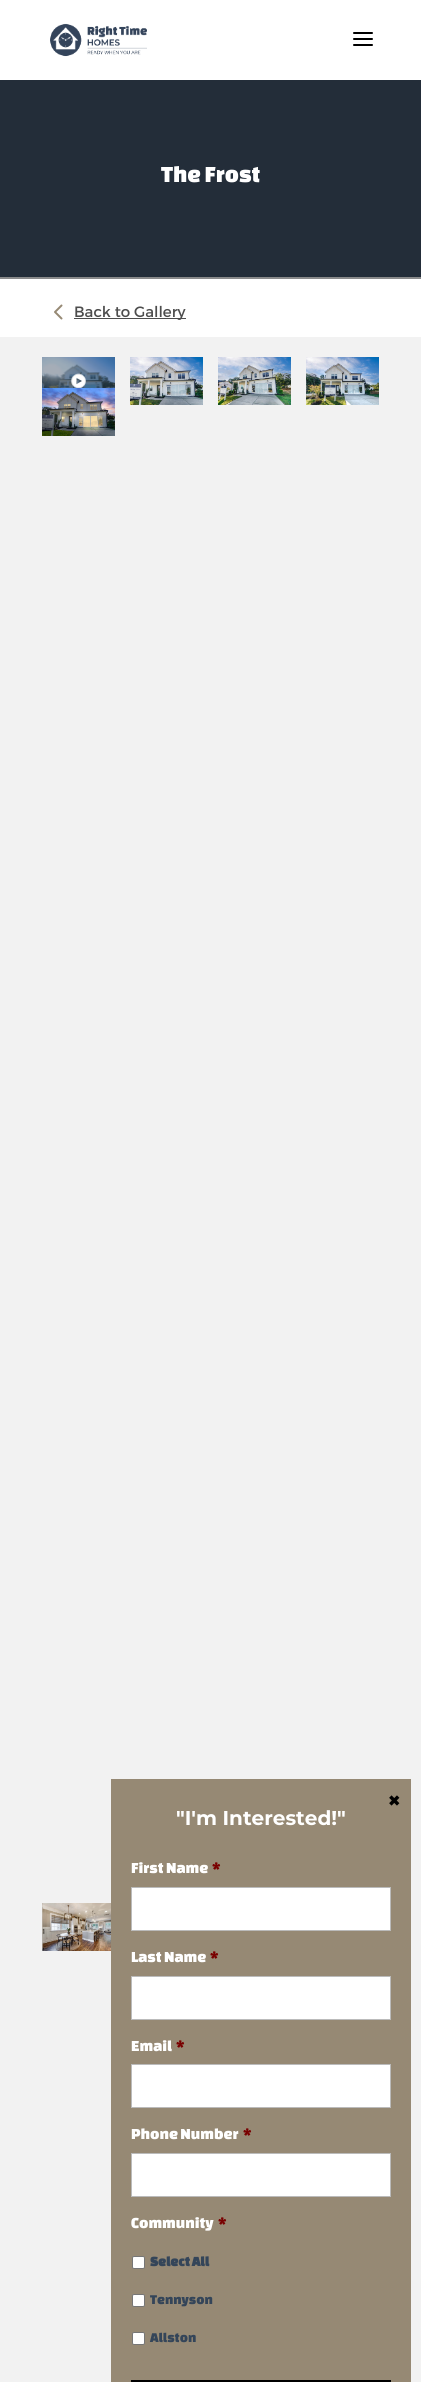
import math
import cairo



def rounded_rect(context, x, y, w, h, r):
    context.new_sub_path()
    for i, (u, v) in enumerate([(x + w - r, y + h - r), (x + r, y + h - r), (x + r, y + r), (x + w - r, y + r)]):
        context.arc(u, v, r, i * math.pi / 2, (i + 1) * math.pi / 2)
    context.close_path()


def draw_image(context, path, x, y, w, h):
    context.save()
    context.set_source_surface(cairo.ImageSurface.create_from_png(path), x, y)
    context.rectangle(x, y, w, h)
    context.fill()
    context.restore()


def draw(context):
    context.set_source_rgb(1, 1, 1)
    context.paint()
    draw_image(context, "images/1.png", 50, 23, 97, 34)
    draw_image(context, "images/2.png", 353, 32, 20, 14)
    context.set_source_rgb(35 / 255, 45 / 255, 57 / 255)
    context.rectangle(0, 80, 421, 197)
    context.fill()
    context.set_source_rgb(137 / 255, 138 / 255, 139 / 255)
    context.rectangle(0, 277, 421, 2)
    context.fill()
    draw_image(context, "images/3.png", 54, 304, 9, 16)
    context.set_source_rgb(77 / 255, 77 / 255, 77 / 255)
    context.rectangle(74, 318, 112, 1)
    context.fill()
    context.set_source_rgb(242 / 255, 242 / 255, 242 / 255)
    context.rectangle(0, 337, 421, 2045)
    context.fill()
    draw_image(context, "images/4.png", 42, 357, 73, 31)
    draw_image(context, "images/5.png", 130, 357, 73, 48)
    draw_image(context, "images/6.png", 218, 357, 73, 48)
    draw_image(context, "images/7.png", 306, 357, 73, 48)
    draw_image(context, "images/8.png", 42, 388, 73, 48)
    draw_image(context, "images/9.png", 42, 1903, 69, 48)
    context.set_source_rgb(150 / 255, 137 / 255, 116 / 255)
    context.rectangle(111, 1779, 300, 603)
    context.fill()
    context.set_source_rgb(1, 1, 1)
    context.rectangle(131.5, 1887.5, 259, 43)
    context.fill_preserve()
    context.set_source_rgb(187 / 255, 187 / 255, 187 / 255)
    context.set_line_width(1)
    context.stroke()
    context.set_source_rgb(1, 1, 1)
    context.rectangle(131.5, 1976.5, 259, 43)
    context.fill_preserve()
    context.set_source_rgb(187 / 255, 187 / 255, 187 / 255)
    context.stroke()
    context.set_source_rgb(1, 1, 1)
    context.rectangle(131.5, 2064.5, 259, 43)
    context.fill_preserve()
    context.set_source_rgb(187 / 255, 187 / 255, 187 / 255)
    context.stroke()
    context.set_source_rgb(1, 1, 1)
    context.rectangle(131.5, 2153.5, 259, 43)
    context.fill_preserve()
    context.set_source_rgb(187 / 255, 187 / 255, 187 / 255)
    context.stroke()
    context.set_source_rgb(1, 1, 1)
    rounded_rect(context, 132.5, 2256.5, 12, 12, 1.5)
    context.fill_preserve()
    context.set_source_rgb(118 / 255, 118 / 255, 118 / 255)
    context.stroke()
    context.set_source_rgb(1, 1, 1)
    rounded_rect(context, 132.5, 2294.5, 12, 12, 1.5)
    context.fill_preserve()
    context.set_source_rgb(118 / 255, 118 / 255, 118 / 255)
    context.stroke()
    context.set_source_rgb(1, 1, 1)
    rounded_rect(context, 132.5, 2332.5, 12, 12, 1.5)
    context.fill_preserve()
    context.set_source_rgb(118 / 255, 118 / 255, 118 / 255)
    context.stroke()
    context.rectangle(132, 2381, 258, 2)
    context.set_source_rgb(0, 0, 0)
    context.set_line_width(2)
    context.stroke()
    context.select_font_face("Changa One")
    context.set_font_size(24)
    context.set_source_rgb(1, 1, 1)
    context.move_to(161, 182)
    context.show_text("The Frost")
    context.select_font_face("Montserrat")
    context.set_font_size(15)
    context.set_source_rgb(77 / 255, 77 / 255, 77 / 255)
    context.move_to(74, 317)
    context.show_text("Back to Gallery")
    context.select_font_face("Changa One", cairo.FontSlant.NORMAL, cairo.FontWeight.BOLD)
    context.set_font_size(20)
    context.set_source_rgb(0, 0, 0)
    context.move_to(388, 1807)
    context.show_text("×")
    context.select_font_face("Montserrat", cairo.FontSlant.NORMAL, cairo.FontWeight.BOLD)
    context.set_source_rgb(1, 1, 1)
    context.move_to(176, 1825)
    context.show_text("\"I'm Interested!\"")
    context.select_font_face("Changa One")
    context.set_font_size(16)
    context.move_to(131, 1873)
    context.show_text("First Name")
    context.set_source_rgb(121 / 255, 0, 0)
    context.move_to(212, 1873)
    context.show_text("*")
    context.set_source_rgb(1, 1, 1)
    context.move_to(131, 1962)
    context.show_text("Last Name")
    context.set_source_rgb(121 / 255, 0, 0)
    context.move_to(210, 1962)
    context.show_text("*")
    context.set_source_rgb(1, 1, 1)
    context.move_to(131, 2051)
    context.show_text("Email")
    context.set_source_rgb(121 / 255, 0, 0)
    context.move_to(176, 2051)
    context.show_text("*")
    context.set_source_rgb(1, 1, 1)
    context.move_to(131, 2139)
    context.show_text("Phone Number")
    context.set_source_rgb(121 / 255, 0, 0)
    context.move_to(243, 2139)
    context.show_text("*")
    context.set_source_rgb(1, 1, 1)
    context.move_to(131, 2228)
    context.show_text("Community")
    context.set_source_rgb(121 / 255, 0, 0)
    context.move_to(218, 2228)
    context.show_text("*")
    context.select_font_face("Changa One", cairo.FontSlant.NORMAL, cairo.FontWeight.BOLD)
    context.set_font_size(14)
    context.set_source_rgb(52 / 255, 69 / 255, 89 / 255)
    context.move_to(150, 2266)
    context.show_text("Select All")
    context.select_font_face("Changa One")
    context.move_to(150, 2304)
    context.show_text("Tennyson")
    context.move_to(150, 2342)
    context.show_text("Allston")


surface = cairo.ImageSurface(cairo.Format.RGB24, 421, 2382)
context = cairo.Context(surface)
options = cairo.FontOptions()
options.set_hint_metrics(cairo.HintMetrics.OFF)
options.set_hint_style(cairo.HintStyle.NONE)
context.set_font_options(options)
context.set_miter_limit(4)
draw(context)
surface.write_to_png("out.png")
